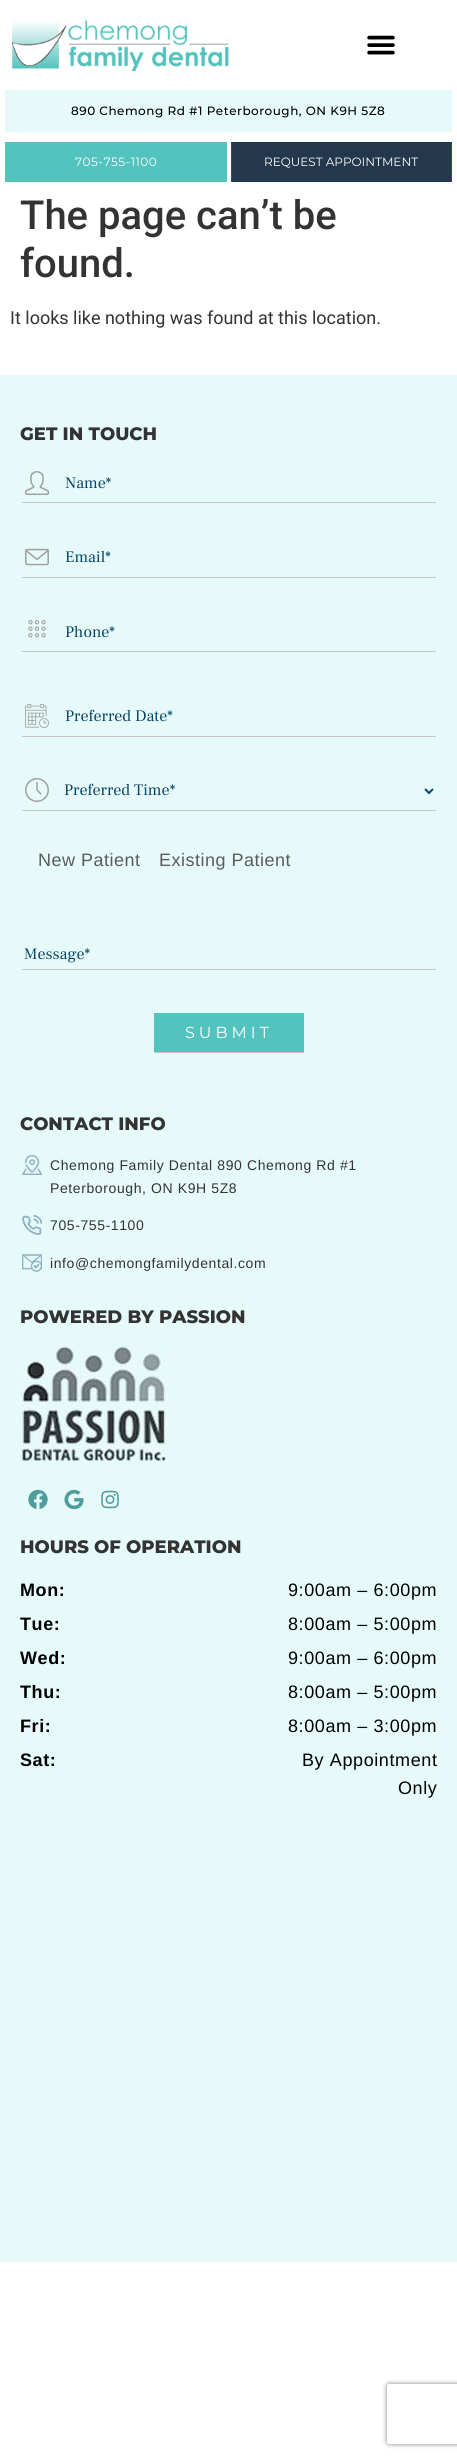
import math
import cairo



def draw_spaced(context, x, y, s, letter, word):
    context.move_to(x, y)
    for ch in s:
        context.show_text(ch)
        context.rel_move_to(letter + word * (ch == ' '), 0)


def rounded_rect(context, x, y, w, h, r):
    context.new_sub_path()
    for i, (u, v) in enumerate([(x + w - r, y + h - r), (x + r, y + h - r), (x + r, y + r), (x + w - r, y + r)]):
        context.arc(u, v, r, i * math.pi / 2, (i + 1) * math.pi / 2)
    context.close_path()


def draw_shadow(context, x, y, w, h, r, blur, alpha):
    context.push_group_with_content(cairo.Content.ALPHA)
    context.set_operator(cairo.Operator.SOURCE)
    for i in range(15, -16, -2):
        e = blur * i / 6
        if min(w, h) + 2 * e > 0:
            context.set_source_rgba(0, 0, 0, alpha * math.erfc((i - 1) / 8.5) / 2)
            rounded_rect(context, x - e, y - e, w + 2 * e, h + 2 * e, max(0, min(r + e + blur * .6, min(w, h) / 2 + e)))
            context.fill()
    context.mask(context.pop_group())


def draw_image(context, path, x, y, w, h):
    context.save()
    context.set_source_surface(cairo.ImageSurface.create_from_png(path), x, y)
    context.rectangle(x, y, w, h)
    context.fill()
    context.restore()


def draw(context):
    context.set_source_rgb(1, 1, 1)
    context.paint()
    draw_image(context, "images/1.png", 11, 20, 218, 51)
    draw_image(context, "images/2.png", 367, 35, 28, 20)
    context.set_source_rgb(231 / 255, 250 / 255, 250 / 255)
    context.rectangle(5, 90, 447, 42)
    context.fill()
    context.set_source_rgb(83 / 255, 195 / 255, 190 / 255)
    context.rectangle(5, 142, 222, 40)
    context.fill()
    context.set_source_rgb(0, 90 / 255, 142 / 255)
    context.rectangle(231, 142, 221, 40)
    context.fill()
    context.set_source_rgb(35 / 255, 56 / 255, 76 / 255)
    context.rectangle(232, 142, 219, 40)
    context.fill()
    context.set_source_rgb(231 / 255, 250 / 255, 250 / 255)
    context.rectangle(0, 375, 457, 1887)
    context.fill()
    draw_image(context, "images/3.png", 25, 471, 24, 24)
    context.set_source_rgb(198 / 255, 198 / 255, 198 / 255)
    context.rectangle(22, 502, 414, 1)
    context.fill()
    draw_image(context, "images/4.png", 25, 548, 24, 18)
    context.rectangle(22, 577, 414, 1)
    context.fill()
    draw_image(context, "images/5.png", 28, 620, 18, 18)
    context.rectangle(22, 651, 414, 1)
    context.fill()
    draw_image(context, "images/6.png", 25, 704, 24, 24)
    context.rectangle(22, 736, 414, 1)
    context.fill()
    draw_image(context, "images/7.png", 25, 778, 24, 24)
    context.rectangle(22, 810, 414, 1)
    context.fill()
    context.new_path()
    context.move_to(425, 789)
    context.line_to(429, 793)
    context.line_to(433, 789)
    context.set_source_rgb(8 / 255, 68 / 255, 102 / 255)
    context.stroke()
    context.set_source_rgb(198 / 255, 198 / 255, 198 / 255)
    context.rectangle(22, 969, 414, 1)
    context.fill()
    context.set_source_rgb(83 / 255, 195 / 255, 190 / 255)
    context.rectangle(154, 1013, 150, 39)
    context.fill()
    context.set_source_rgb(198 / 255, 198 / 255, 198 / 255)
    context.rectangle(154, 1052, 150, 1)
    context.fill()
    draw_image(context, "images/8.png", 22, 1155, 20, 20)
    draw_image(context, "images/9.png", 22, 1215, 20, 20)
    draw_image(context, "images/10.png", 22, 1254, 20, 18)
    draw_image(context, "images/11.png", 20, 1346, 147, 116)
    draw_image(context, "images/12.png", 28, 1489, 20, 20)
    draw_image(context, "images/13.png", 64, 1489, 20, 21)
    draw_image(context, "images/14.png", 101, 1490, 18, 19)
    context.save()
    context.set_fill_rule(cairo.FillRule.EVEN_ODD)
    context.new_path()
    context.move_to(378, 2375)
    context.line_to(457, 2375)
    context.line_to(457, 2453)
    context.line_to(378, 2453)
    context.close_path()
    context.move_to(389, 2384)
    context.line_to(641, 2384)
    context.curve_to(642, 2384, 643, 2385, 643, 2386)
    context.line_to(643, 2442)
    context.curve_to(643, 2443, 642, 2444, 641, 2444)
    context.line_to(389, 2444)
    context.curve_to(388, 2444, 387, 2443, 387, 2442)
    context.line_to(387, 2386)
    context.curve_to(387, 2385, 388, 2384, 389, 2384)
    context.close_path()
    context.clip()
    context.set_source_rgb(128 / 255, 128 / 255, 128 / 255)
    draw_shadow(context, 387, 2384, 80, 60, 2, 2.5, 1)
    context.restore()
    context.select_font_face("Montserrat Medium")
    context.set_font_size(12)
    context.set_source_rgb(0, 0, 0)
    draw_spaced(context, 71, 115, "890 Chemong Rd #1 Peterborough, ON K9H 5Z8", 0.5, 0)
    context.select_font_face("Montserrat")
    context.set_source_rgb(1, 1, 1)
    draw_spaced(context, 75, 166, "705-755-1100", 0.5, 0)
    context.move_to(264, 166)
    context.show_text("REQUEST APPOINTMENT")
    context.select_font_face("Roboto Medium")
    context.set_font_size(40)
    context.set_source_rgb(51 / 255, 51 / 255, 51 / 255)
    context.move_to(20, 229)
    context.show_text("The page can’t be")
    context.move_to(20, 277)
    context.show_text("found.")
    context.select_font_face("Roboto")
    context.set_font_size(18)
    context.move_to(10, 324)
    context.show_text("It looks like nothing was found at this location.")
    context.select_font_face("Montserrat ExtraBold")
    context.move_to(20, 440)
    context.show_text("GET IN TOUCH")
    context.select_font_face("Frank Ruhl Libre")
    context.set_font_size(16)
    context.set_source_rgb(8 / 255, 68 / 255, 102 / 255)
    context.move_to(65, 488)
    context.show_text("Name*")
    context.move_to(65, 562)
    context.show_text("Email*")
    context.move_to(65, 637)
    context.show_text("Phone*")
    context.move_to(65, 721)
    context.show_text("Preferred Date*")
    context.move_to(64, 795)
    context.show_text("Preferred Time*")
    context.select_font_face("Liberation Sans")
    context.set_font_size(18)
    context.set_source_rgb(91 / 255, 91 / 255, 91 / 255)
    draw_spaced(context, 38, 866, "New Patient", 0.5, 0)
    draw_spaced(context, 159, 866, "Existing Patient", 0.5, 0)
    context.select_font_face("Frank Ruhl Libre")
    context.set_font_size(16)
    context.set_source_rgb(8 / 255, 68 / 255, 102 / 255)
    context.move_to(24, 959)
    context.show_text("Message*")
    context.select_font_face("Montserrat")
    context.set_source_rgb(1, 1, 1)
    draw_spaced(context, 185, 1038, "SUBMIT", 4, 0)
    context.select_font_face("Montserrat ExtraBold")
    context.set_font_size(18)
    context.set_source_rgb(51 / 255, 51 / 255, 51 / 255)
    context.move_to(20, 1130)
    context.show_text("CONTACT INFO")
    context.select_font_face("Liberation Sans")
    context.set_font_size(14)
    draw_spaced(context, 50, 1170, "Chemong Family Dental 890 Chemong Rd #1", 0.6, 0)
    draw_spaced(context, 50, 1193, "Peterborough, ON K9H 5Z8", 0.6, 0)
    draw_spaced(context, 50, 1230, "705-755-1100", 0.6, 0)
    draw_spaced(context, 50, 1268, "info@chemongfamilydental.com", 0.6, 0)
    context.select_font_face("Montserrat ExtraBold")
    context.set_font_size(18)
    context.move_to(20, 1323)
    context.show_text("POWERED BY PASSION")
    context.move_to(20, 1553)
    context.show_text("HOURS OF OPERATION")
    context.select_font_face("Liberation Sans", cairo.FontSlant.NORMAL, cairo.FontWeight.BOLD)
    context.set_source_rgb(0, 0, 0)
    draw_spaced(context, 20, 1596, "Mon:", 0.6, 0)
    context.select_font_face("Liberation Sans")
    draw_spaced(context, 288, 1596, "9:00am – 6:00pm", 0.6, 0)
    context.select_font_face("Liberation Sans", cairo.FontSlant.NORMAL, cairo.FontWeight.BOLD)
    draw_spaced(context, 20, 1630, "Tue:", 0.6, 0)
    context.select_font_face("Liberation Sans")
    draw_spaced(context, 288, 1630, "8:00am – 5:00pm", 0.6, 0)
    context.select_font_face("Liberation Sans", cairo.FontSlant.NORMAL, cairo.FontWeight.BOLD)
    draw_spaced(context, 20, 1664, "Wed:", 0.6, 0)
    context.select_font_face("Liberation Sans")
    draw_spaced(context, 288, 1664, "9:00am – 6:00pm", 0.6, 0)
    context.select_font_face("Liberation Sans", cairo.FontSlant.NORMAL, cairo.FontWeight.BOLD)
    draw_spaced(context, 20, 1698, "Thu:", 0.6, 0)
    context.select_font_face("Liberation Sans")
    draw_spaced(context, 288, 1698, "8:00am – 5:00pm", 0.6, 0)
    context.select_font_face("Liberation Sans", cairo.FontSlant.NORMAL, cairo.FontWeight.BOLD)
    draw_spaced(context, 20, 1732, "Fri:", 0.6, 0)
    context.select_font_face("Liberation Sans")
    draw_spaced(context, 288, 1732, "8:00am – 3:00pm", 0.6, 0)
    context.select_font_face("Liberation Sans", cairo.FontSlant.NORMAL, cairo.FontWeight.BOLD)
    draw_spaced(context, 20, 1766, "Sat:", 0.6, 0)
    context.select_font_face("Liberation Sans")
    draw_spaced(context, 302, 1766, "By Appointment", 0.6, 0)
    draw_spaced(context, 398, 1794, "Only", 0.6, 0)


surface = cairo.ImageSurface(cairo.Format.RGB24, 457, 2458)
context = cairo.Context(surface)
options = cairo.FontOptions()
options.set_hint_metrics(cairo.HintMetrics.OFF)
options.set_hint_style(cairo.HintStyle.NONE)
context.set_font_options(options)
context.set_miter_limit(4)
draw(context)
surface.write_to_png("out.png")
